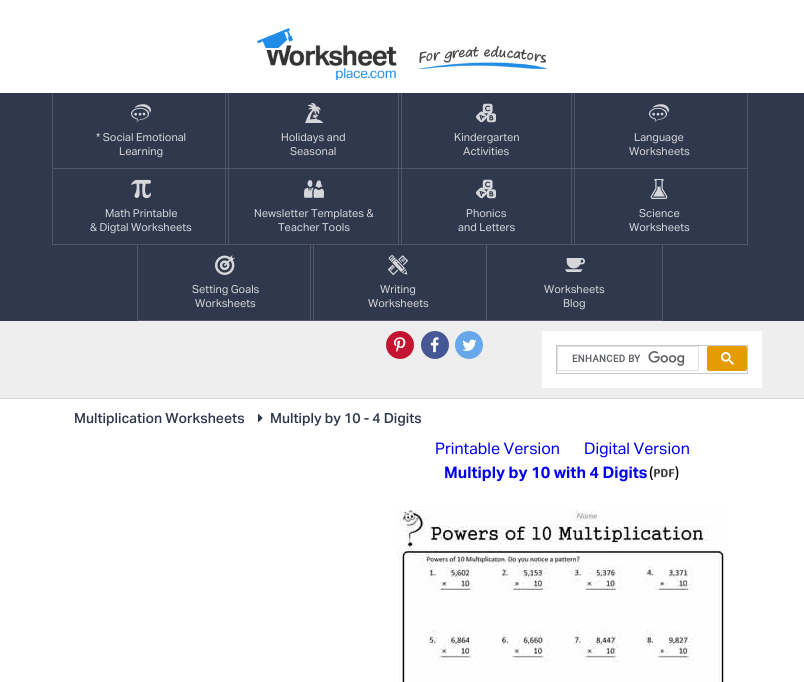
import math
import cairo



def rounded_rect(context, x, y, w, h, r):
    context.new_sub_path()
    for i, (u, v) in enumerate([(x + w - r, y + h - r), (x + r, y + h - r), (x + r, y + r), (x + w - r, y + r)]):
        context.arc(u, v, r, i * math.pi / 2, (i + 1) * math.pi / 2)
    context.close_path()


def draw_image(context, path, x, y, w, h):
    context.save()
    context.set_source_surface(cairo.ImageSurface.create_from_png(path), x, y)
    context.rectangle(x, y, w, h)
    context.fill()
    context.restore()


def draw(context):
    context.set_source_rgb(1, 1, 1)
    context.paint()
    draw_image(context, "images/1.png", 257, 28, 140, 52)
    draw_image(context, "images/2.png", 417, 46, 130, 23)
    context.set_source_rgb(48 / 255, 56 / 255, 77 / 255)
    context.rectangle(0, 93, 804, 228)
    context.fill()
    context.set_source_rgb(80 / 255, 86 / 255, 104 / 255)
    context.rectangle(486, 320, 177, 1)
    context.fill()
    context.rectangle(310, 245, 1, 76)
    context.fill()
    context.rectangle(310, 320, 177, 1)
    context.fill()
    context.rectangle(571, 93, 1, 152)
    context.fill()
    context.rectangle(571, 244, 177, 1)
    context.fill()
    context.rectangle(398, 93, 1, 152)
    context.fill()
    context.rectangle(398, 244, 177, 1)
    context.fill()
    context.set_source_rgb(86 / 255, 92 / 255, 110 / 255)
    context.rectangle(571, 244, 4, 1)
    context.fill()
    context.set_source_rgb(80 / 255, 86 / 255, 104 / 255)
    context.rectangle(225, 93, 1, 152)
    context.fill()
    context.rectangle(225, 244, 177, 1)
    context.fill()
    context.set_source_rgb(86 / 255, 92 / 255, 110 / 255)
    context.rectangle(398, 244, 4, 1)
    context.fill()
    context.set_source_rgb(80 / 255, 86 / 255, 104 / 255)
    context.rectangle(225, 168, 523, 1)
    context.fill()
    context.set_source_rgb(86 / 255, 92 / 255, 110 / 255)
    context.rectangle(571, 168, 4, 1)
    context.fill()
    context.rectangle(398, 168, 4, 1)
    context.fill()
    context.set_source_rgb(80 / 255, 86 / 255, 104 / 255)
    context.rectangle(228, 93, 1, 152)
    context.fill()
    context.rectangle(52, 168, 177, 1)
    context.fill()
    context.set_source_rgb(86 / 255, 92 / 255, 110 / 255)
    context.rectangle(225, 168, 4, 1)
    context.fill()
    context.set_source_rgb(80 / 255, 86 / 255, 104 / 255)
    context.rectangle(52, 93, 1, 76)
    context.fill()
    draw_image(context, "images/3.png", 131, 104, 20, 18)
    context.rectangle(401, 93, 1, 152)
    context.fill()
    context.set_source_rgb(88 / 255, 94 / 255, 111 / 255)
    context.rectangle(401, 168, 1, 1)
    context.fill()
    draw_image(context, "images/4.png", 305, 103, 18, 20)
    context.set_source_rgb(80 / 255, 86 / 255, 104 / 255)
    context.rectangle(574, 93, 1, 152)
    context.fill()
    context.set_source_rgb(88 / 255, 94 / 255, 111 / 255)
    context.rectangle(574, 168, 1, 1)
    context.fill()
    draw_image(context, "images/5.png", 476, 103, 20, 20)
    context.set_source_rgb(80 / 255, 86 / 255, 104 / 255)
    context.rectangle(747, 93, 1, 152)
    context.fill()
    context.set_source_rgb(86 / 255, 92 / 255, 110 / 255)
    context.rectangle(747, 168, 1, 1)
    context.fill()
    draw_image(context, "images/3.png", 649, 104, 20, 18)
    context.set_source_rgb(80 / 255, 86 / 255, 104 / 255)
    context.rectangle(52, 244, 177, 1)
    context.fill()
    context.set_source_rgb(86 / 255, 92 / 255, 110 / 255)
    context.rectangle(225, 244, 4, 1)
    context.fill()
    context.set_source_rgb(80 / 255, 86 / 255, 104 / 255)
    context.rectangle(52, 169, 1, 76)
    context.fill()
    draw_image(context, "images/6.png", 131, 179, 20, 20)
    context.set_source_rgb(88 / 255, 94 / 255, 111 / 255)
    context.rectangle(401, 244, 1, 1)
    context.fill()
    draw_image(context, "images/7.png", 304, 180, 20, 18)
    context.rectangle(574, 244, 1, 1)
    context.fill()
    draw_image(context, "images/5.png", 476, 179, 20, 20)
    context.set_source_rgb(86 / 255, 92 / 255, 110 / 255)
    context.rectangle(747, 244, 1, 1)
    context.fill()
    draw_image(context, "images/8.png", 650, 179, 18, 20)
    context.set_source_rgb(80 / 255, 86 / 255, 104 / 255)
    context.rectangle(313, 245, 1, 76)
    context.fill()
    context.rectangle(137, 320, 177, 1)
    context.fill()
    context.set_source_rgb(86 / 255, 92 / 255, 110 / 255)
    context.rectangle(310, 320, 4, 1)
    context.fill()
    context.set_source_rgb(80 / 255, 86 / 255, 104 / 255)
    context.rectangle(137, 245, 1, 76)
    context.fill()
    draw_image(context, "images/9.png", 215, 255, 20, 20)
    context.set_source_rgb(86 / 255, 92 / 255, 110 / 255)
    context.rectangle(486, 245, 1, 76)
    context.fill()
    draw_image(context, "images/10.png", 388, 255, 20, 20)
    context.set_source_rgb(80 / 255, 86 / 255, 104 / 255)
    context.rectangle(662, 245, 1, 76)
    context.fill()
    context.set_source_rgb(86 / 255, 92 / 255, 110 / 255)
    context.rectangle(662, 320, 1, 1)
    context.fill()
    draw_image(context, "images/11.png", 565, 258, 20, 14)
    context.set_source_rgb(238 / 255, 238 / 255, 238 / 255)
    context.rectangle(0, 321, 804, 77)
    context.fill()
    context.set_source_rgb(213 / 255, 213 / 255, 213 / 255)
    context.rectangle(0, 398, 804, 1)
    context.fill()
    context.set_source_rgb(195 / 255, 21 / 255, 50 / 255)
    context.arc(400, 345, 14, 0, 2 * math.pi)
    context.fill()
    draw_image(context, "images/12.png", 394, 337, 12, 16)
    context.set_source_rgb(69 / 255, 87 / 255, 149 / 255)
    context.arc(435, 345, 14, 0, 2 * math.pi)
    context.fill()
    draw_image(context, "images/13.png", 430, 337, 9, 16)
    context.set_source_rgb(102 / 255, 168 / 255, 235 / 255)
    context.arc(469, 345, 14, 0, 2 * math.pi)
    context.fill()
    draw_image(context, "images/14.png", 462, 339, 15, 12)
    context.set_source_rgb(1, 1, 1)
    context.rectangle(542, 331, 220, 57)
    context.fill()
    context.rectangle(556.5, 345.5, 191, 28)
    context.set_source_rgb(201 / 255, 201 / 255, 201 / 255)
    context.set_line_width(1)
    context.stroke()
    context.rectangle(557.5, 346.5, 141, 24)
    context.set_source_rgb(223 / 255, 225 / 255, 229 / 255)
    context.stroke()
    draw_image(context, "images/15.png", 572, 351, 113, 15)
    context.set_source_rgb(228 / 255, 156 / 255, 1 / 255)
    rounded_rect(context, 707, 346, 40, 25, 2)
    context.fill()
    draw_image(context, "images/16.png", 721, 352, 13, 13)
    draw_image(context, "images/17.png", 258, 414, 5, 8)
    draw_image(context, "images/18.png", 654, 468, 21, 10)
    draw_image(context, "images/19.png", 397, 510, 328, 172)
    context.select_font_face("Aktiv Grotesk")
    context.set_font_size(11)
    context.set_source_rgb(214 / 255, 215 / 255, 219 / 255)
    context.move_to(96, 141)
    context.show_text("* Social Emotional")
    context.move_to(119, 155)
    context.show_text("Learning")
    context.move_to(281, 141)
    context.show_text("Holidays and")
    context.move_to(290, 155)
    context.show_text("Seasonal")
    context.move_to(454, 141)
    context.show_text("Kindergarten")
    context.move_to(463, 155)
    context.show_text("Activities")
    context.move_to(634, 141)
    context.show_text("Language")
    context.move_to(629, 155)
    context.show_text("Worksheets")
    context.move_to(105, 217)
    context.show_text("Math Printable")
    context.move_to(90, 231)
    context.show_text("& Digtal Worksheets")
    context.move_to(254, 217)
    context.show_text("Newsletter Templates &")
    context.move_to(278, 231)
    context.show_text("Teacher Tools")
    context.move_to(466, 217)
    context.show_text("Phonics")
    context.move_to(458, 231)
    context.show_text("and Letters")
    context.move_to(639, 217)
    context.show_text("Science")
    context.move_to(629, 231)
    context.show_text("Worksheets")
    context.move_to(192, 293)
    context.show_text("Setting Goals")
    context.move_to(195, 307)
    context.show_text("Worksheets")
    context.move_to(380, 293)
    context.show_text("Writing")
    context.move_to(368, 307)
    context.show_text("Worksheets")
    context.move_to(544, 293)
    context.show_text("Worksheets")
    context.move_to(563, 307)
    context.show_text("Blog")
    context.select_font_face("Aktiv Grotesk Medium")
    context.set_font_size(14)
    context.set_source_rgb(48 / 255, 56 / 255, 77 / 255)
    context.move_to(74, 423)
    context.show_text("Multiplication Worksheets")
    context.move_to(270, 423)
    context.show_text("Multiply by 10 - 4 Digits")
    context.select_font_face("Aktiv Grotesk")
    context.set_font_size(16)
    context.set_source_rgb(0, 0, 238 / 255)
    context.move_to(435, 454)
    context.show_text("Printable Version")
    context.move_to(584, 454)
    context.show_text("Digital Version")
    context.select_font_face("Aktiv Grotesk", cairo.FontSlant.NORMAL, cairo.FontWeight.BOLD)
    context.move_to(444, 478)
    context.show_text("Multiply by 10 with 4 Digits")
    context.select_font_face("Aktiv Grotesk")
    context.set_source_rgb(0, 0, 0)
    context.move_to(649, 478)
    context.show_text("(")
    context.move_to(675, 478)
    context.show_text(")")


surface = cairo.ImageSurface(cairo.Format.RGB24, 804, 682)
context = cairo.Context(surface)
options = cairo.FontOptions()
options.set_hint_metrics(cairo.HintMetrics.OFF)
options.set_hint_style(cairo.HintStyle.NONE)
context.set_font_options(options)
context.set_miter_limit(4)
draw(context)
surface.write_to_png("out.png")
